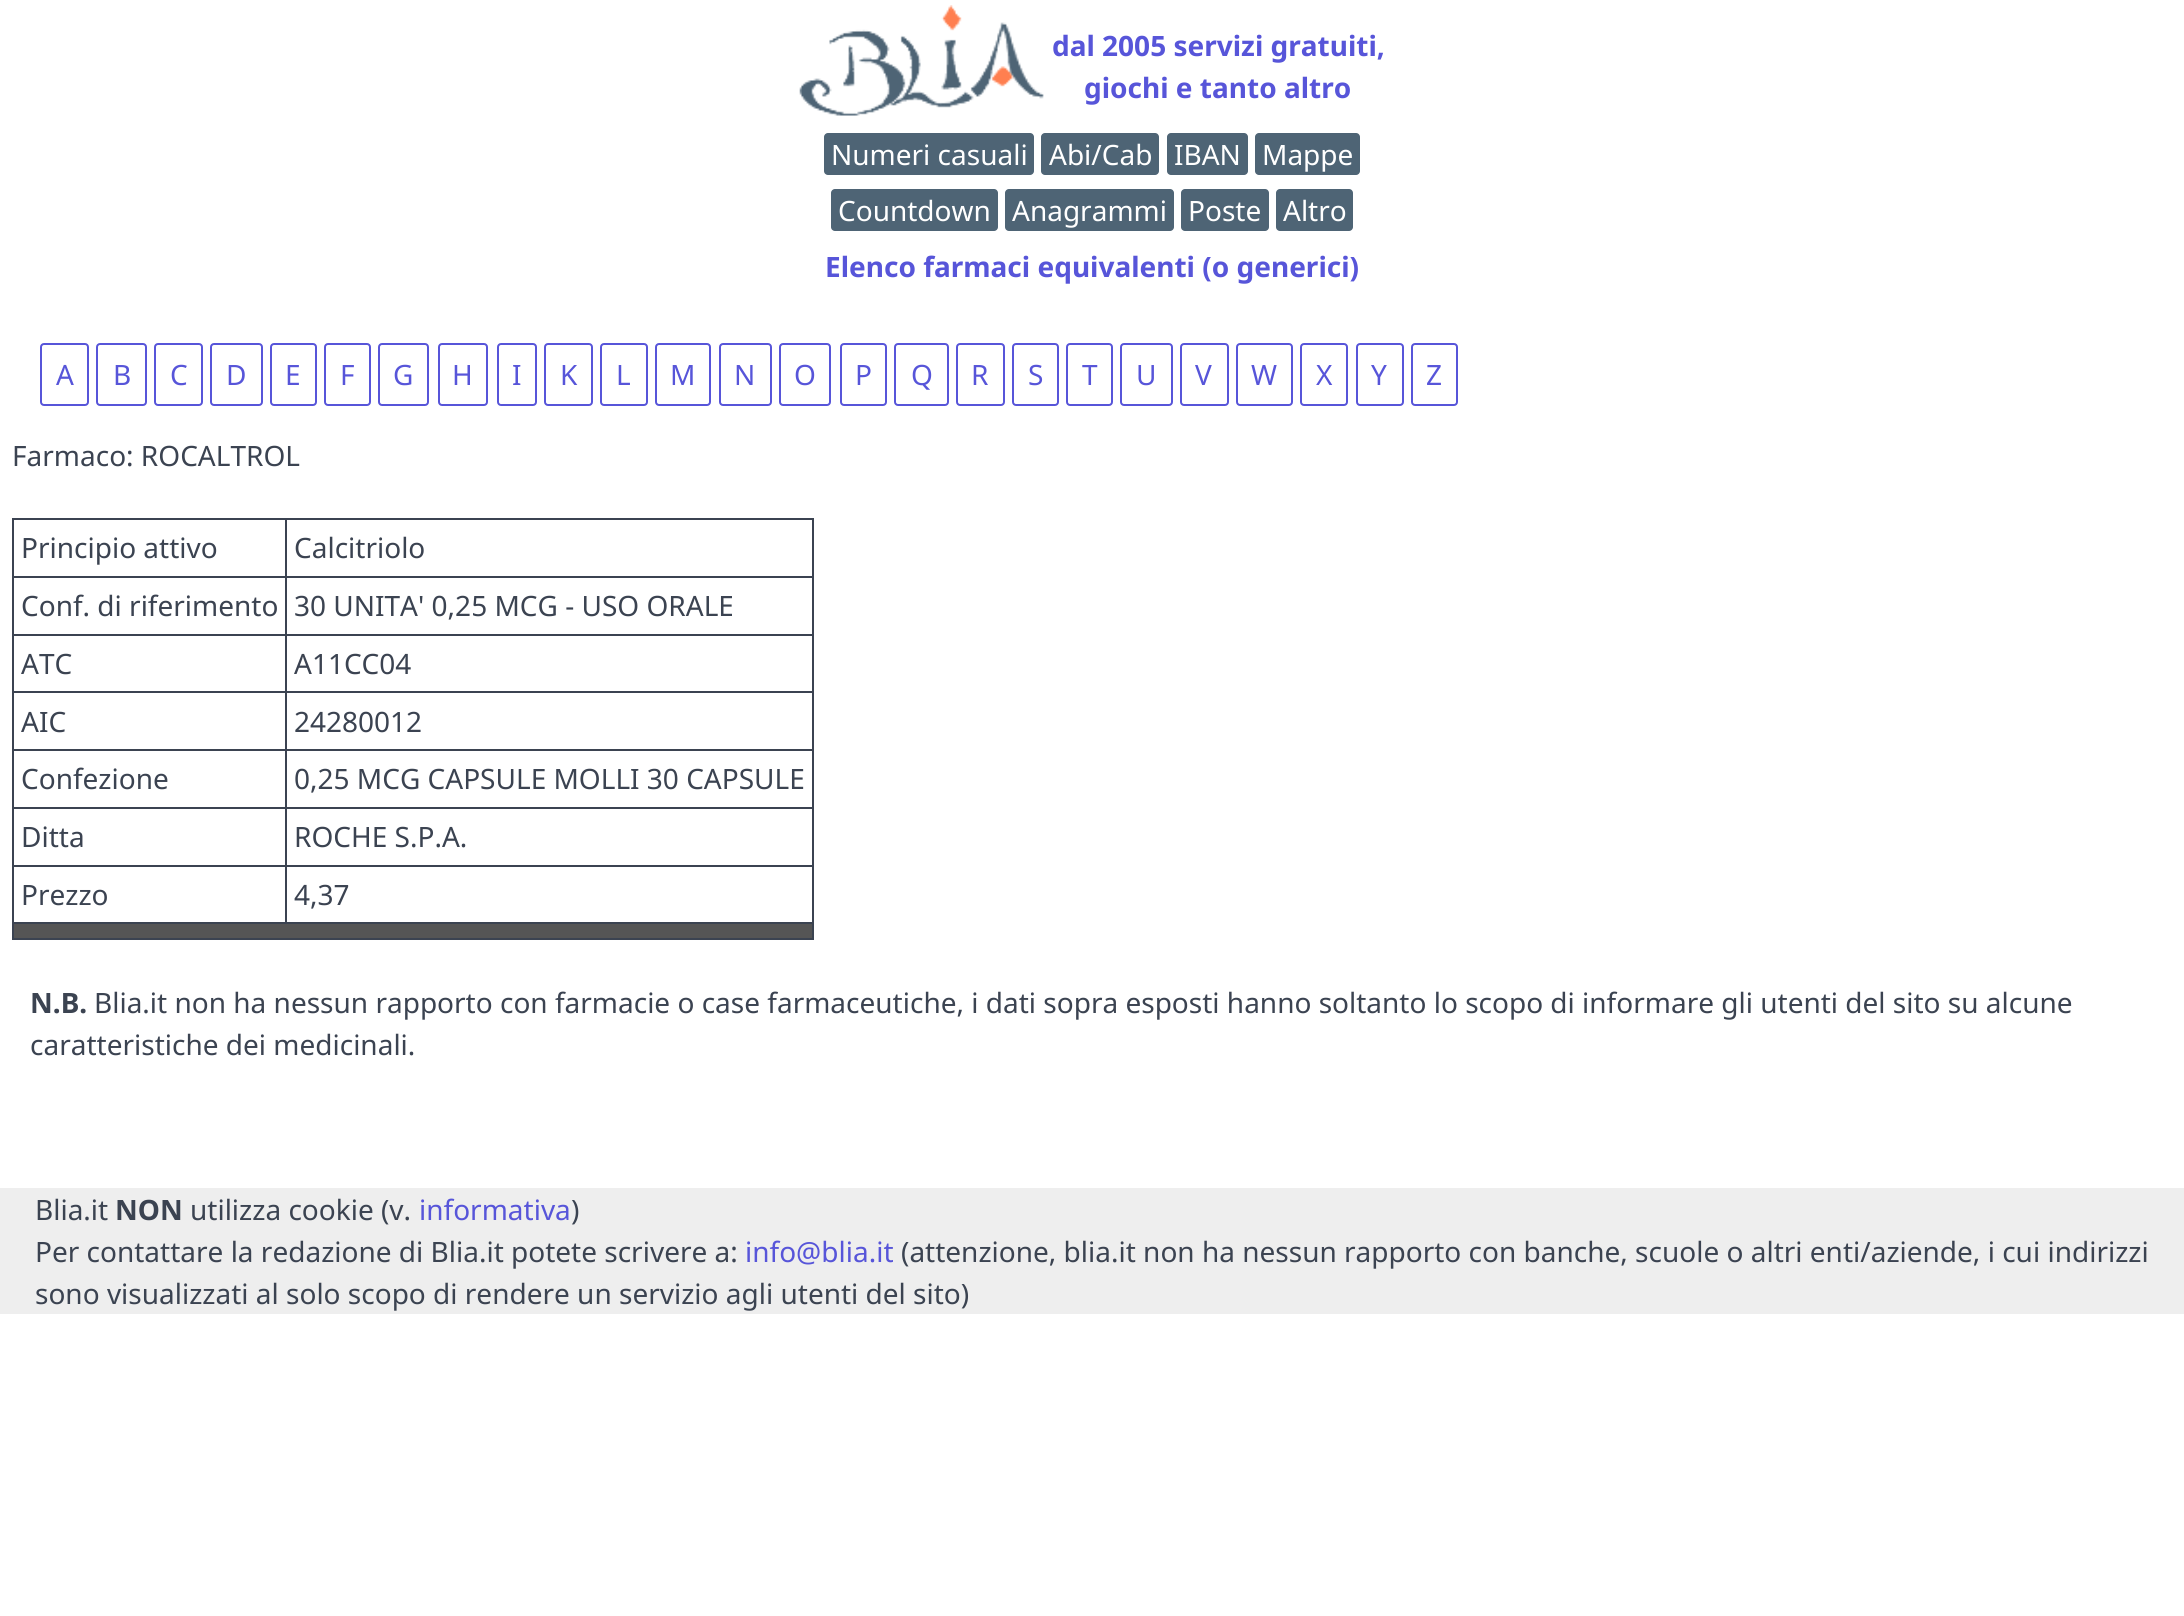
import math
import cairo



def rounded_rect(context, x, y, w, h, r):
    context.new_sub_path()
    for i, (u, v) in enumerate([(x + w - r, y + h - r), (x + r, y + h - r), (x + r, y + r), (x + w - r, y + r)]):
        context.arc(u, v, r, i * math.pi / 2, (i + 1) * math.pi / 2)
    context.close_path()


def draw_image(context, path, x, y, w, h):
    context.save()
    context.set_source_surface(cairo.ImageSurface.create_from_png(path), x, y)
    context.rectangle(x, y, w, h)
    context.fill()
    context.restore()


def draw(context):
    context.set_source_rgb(1, 1, 1)
    context.paint()
    draw_image(context, "images/1.png", 799, 5, 245, 111)
    context.set_source_rgb(78 / 255, 100 / 255, 117 / 255)
    rounded_rect(context, 824, 133, 210, 42, 4)
    context.fill()
    rounded_rect(context, 1041, 133, 118, 42, 4)
    context.fill()
    rounded_rect(context, 1167, 133, 81, 42, 4)
    context.fill()
    rounded_rect(context, 1255, 133, 105, 42, 4)
    context.fill()
    rounded_rect(context, 831, 189, 167, 42, 4)
    context.fill()
    rounded_rect(context, 1005, 189, 169, 42, 4)
    context.fill()
    rounded_rect(context, 1181, 189, 88, 42, 4)
    context.fill()
    rounded_rect(context, 1276, 189, 77, 42, 4)
    context.fill()
    rounded_rect(context, 41, 344, 47, 61, 3)
    context.set_source_rgb(87 / 255, 85 / 255, 217 / 255)
    context.stroke()
    rounded_rect(context, 97, 344, 49, 61, 3)
    context.stroke()
    rounded_rect(context, 155, 344, 47, 61, 3)
    context.stroke()
    rounded_rect(context, 211, 344, 51, 61, 3)
    context.stroke()
    rounded_rect(context, 271, 344, 45, 61, 3)
    context.stroke()
    rounded_rect(context, 325, 344, 45, 61, 3)
    context.stroke()
    rounded_rect(context, 379, 344, 49, 61, 3)
    context.stroke()
    rounded_rect(context, 439, 344, 48, 61, 3)
    context.stroke()
    rounded_rect(context, 498, 344, 38, 61, 3)
    context.stroke()
    rounded_rect(context, 545, 344, 47, 61, 3)
    context.stroke()
    rounded_rect(context, 601, 344, 46, 61, 3)
    context.stroke()
    rounded_rect(context, 656, 344, 54, 61, 3)
    context.stroke()
    rounded_rect(context, 720, 344, 51, 61, 3)
    context.stroke()
    rounded_rect(context, 780, 344, 50, 61, 3)
    context.stroke()
    rounded_rect(context, 841, 344, 45, 61, 3)
    context.stroke()
    rounded_rect(context, 895, 344, 53, 61, 3)
    context.stroke()
    rounded_rect(context, 957, 344, 47, 61, 3)
    context.stroke()
    rounded_rect(context, 1013, 344, 45, 61, 3)
    context.stroke()
    rounded_rect(context, 1067, 344, 45, 61, 3)
    context.stroke()
    rounded_rect(context, 1121, 344, 51, 61, 3)
    context.stroke()
    rounded_rect(context, 1181, 344, 47, 61, 3)
    context.stroke()
    rounded_rect(context, 1237, 344, 55, 61, 3)
    context.stroke()
    rounded_rect(context, 1301, 344, 46, 61, 3)
    context.stroke()
    rounded_rect(context, 1357, 344, 46, 61, 3)
    context.stroke()
    rounded_rect(context, 1412, 344, 45, 61, 3)
    context.stroke()
    context.set_source_rgb(59 / 255, 67 / 255, 81 / 255)
    context.rectangle(12, 518, 802, 2)
    context.fill()
    context.rectangle(812, 518, 2, 422)
    context.fill()
    context.rectangle(12, 938, 802, 2)
    context.fill()
    context.rectangle(12, 518, 2, 422)
    context.fill()
    context.rectangle(285, 576, 529, 2)
    context.fill()
    context.rectangle(285, 634, 529, 2)
    context.fill()
    context.rectangle(285, 691, 529, 2)
    context.fill()
    context.rectangle(285, 749, 529, 2)
    context.fill()
    context.rectangle(285, 807, 529, 2)
    context.fill()
    context.rectangle(285, 865, 529, 2)
    context.fill()
    context.rectangle(12, 922, 802, 2)
    context.fill()
    context.rectangle(285, 865, 2, 59)
    context.fill()
    context.rectangle(12, 865, 275, 2)
    context.fill()
    context.rectangle(285, 807, 2, 59)
    context.fill()
    context.rectangle(12, 807, 275, 2)
    context.fill()
    context.rectangle(285, 749, 2, 60)
    context.fill()
    context.rectangle(12, 749, 275, 2)
    context.fill()
    context.rectangle(285, 691, 2, 60)
    context.fill()
    context.rectangle(12, 691, 275, 2)
    context.fill()
    context.rectangle(285, 634, 2, 59)
    context.fill()
    context.rectangle(12, 634, 275, 2)
    context.fill()
    context.rectangle(285, 576, 2, 59)
    context.fill()
    context.rectangle(12, 576, 275, 2)
    context.fill()
    context.rectangle(285, 518, 2, 60)
    context.fill()
    context.set_source_rgb(85 / 255, 85 / 255, 85 / 255)
    context.rectangle(14, 924, 798, 14)
    context.fill()
    context.set_source_rgb(238 / 255, 238 / 255, 238 / 255)
    context.rectangle(0, 1188, 2184, 126)
    context.fill()
    context.select_font_face("Noto Sans", cairo.FontSlant.NORMAL, cairo.FontWeight.BOLD)
    context.set_font_size(28)
    context.set_source_rgb(87 / 255, 85 / 255, 217 / 255)
    context.move_to(1052, 56)
    context.show_text("dal 2005 servizi gratuiti,")
    context.move_to(1084, 98)
    context.show_text("giochi e tanto altro")
    context.select_font_face("Noto Sans")
    context.set_source_rgb(1, 1, 1)
    context.move_to(831, 165)
    context.show_text("Numeri casuali")
    context.move_to(1049, 165)
    context.show_text("Abi/Cab")
    context.move_to(1174, 165)
    context.show_text("IBAN")
    context.move_to(1262, 165)
    context.show_text("Mappe")
    context.move_to(838, 221)
    context.show_text("Countdown")
    context.move_to(1012, 221)
    context.show_text("Anagrammi")
    context.move_to(1188, 221)
    context.show_text("Poste")
    context.move_to(1283, 221)
    context.show_text("Altro")
    context.select_font_face("Noto Sans", cairo.FontSlant.NORMAL, cairo.FontWeight.BOLD)
    context.set_source_rgb(87 / 255, 85 / 255, 217 / 255)
    context.move_to(825, 277)
    context.show_text("Elenco farmaci equivalenti (o generici)")
    context.select_font_face("Noto Sans")
    context.move_to(56, 385)
    context.show_text("A")
    context.move_to(113, 385)
    context.show_text("B")
    context.move_to(170, 385)
    context.show_text("C")
    context.move_to(226, 385)
    context.show_text("D")
    context.move_to(285, 385)
    context.show_text("E")
    context.move_to(340, 385)
    context.show_text("F")
    context.move_to(393, 385)
    context.show_text("G")
    context.move_to(452, 385)
    context.show_text("H")
    context.move_to(512, 385)
    context.show_text("I")
    context.move_to(560, 385)
    context.show_text("K")
    context.move_to(616, 385)
    context.show_text("L")
    context.move_to(670, 385)
    context.show_text("M")
    context.move_to(734, 385)
    context.show_text("N")
    context.move_to(794, 385)
    context.show_text("O")
    context.move_to(855, 385)
    context.show_text("P")
    context.move_to(911, 385)
    context.show_text("Q")
    context.move_to(971, 385)
    context.show_text("R")
    context.move_to(1028, 385)
    context.show_text("S")
    context.move_to(1082, 385)
    context.show_text("T")
    context.move_to(1136, 385)
    context.show_text("U")
    context.move_to(1195, 385)
    context.show_text("V")
    context.move_to(1251, 385)
    context.show_text("W")
    context.move_to(1316, 385)
    context.show_text("X")
    context.move_to(1371, 385)
    context.show_text("Y")
    context.move_to(1426, 385)
    context.show_text("Z")
    context.set_source_rgb(59 / 255, 67 / 255, 81 / 255)
    context.move_to(12, 466)
    context.show_text("Farmaco: ROCALTROL")
    context.move_to(21, 558)
    context.show_text("Principio attivo")
    context.move_to(294, 558)
    context.show_text("Calcitriolo")
    context.move_to(21, 616)
    context.show_text("Conf. di riferimento")
    context.move_to(294, 616)
    context.show_text("30 UNITA' 0,25 MCG - USO ORALE")
    context.move_to(21, 674)
    context.show_text("ATC")
    context.move_to(294, 674)
    context.show_text("A11CC04")
    context.move_to(21, 732)
    context.show_text("AIC")
    context.move_to(294, 732)
    context.show_text("24280012")
    context.move_to(21, 789)
    context.show_text("Confezione")
    context.move_to(294, 789)
    context.show_text("0,25 MCG CAPSULE MOLLI 30 CAPSULE")
    context.move_to(21, 847)
    context.show_text("Ditta")
    context.move_to(294, 847)
    context.show_text("ROCHE S.P.A.")
    context.move_to(21, 905)
    context.show_text("Prezzo")
    context.move_to(294, 905)
    context.show_text("4,37")
    context.select_font_face("Noto Sans", cairo.FontSlant.NORMAL, cairo.FontWeight.BOLD)
    context.move_to(30, 1013)
    context.show_text("N.B.")
    context.select_font_face("Noto Sans")
    context.move_to(94, 1013)
    context.show_text("Blia.it non ha nessun rapporto con farmacie o case farmaceutiche, i dati sopra esposti hanno soltanto lo scopo di informare gli utenti del sito su alcune")
    context.move_to(30, 1055)
    context.show_text("caratteristiche dei medicinali.")
    context.move_to(35, 1220)
    context.show_text("Blia.it")
    context.select_font_face("Noto Sans", cairo.FontSlant.NORMAL, cairo.FontWeight.BOLD)
    context.move_to(115, 1220)
    context.show_text("NON")
    context.select_font_face("Noto Sans")
    context.move_to(190, 1220)
    context.show_text("utilizza cookie (v.")
    context.set_source_rgb(87 / 255, 85 / 255, 217 / 255)
    context.move_to(419, 1220)
    context.show_text("informativa")
    context.set_source_rgb(59 / 255, 67 / 255, 81 / 255)
    context.move_to(571, 1220)
    context.show_text(")")
    context.move_to(35, 1262)
    context.show_text("Per contattare la redazione di Blia.it potete scrivere a:")
    context.set_source_rgb(87 / 255, 85 / 255, 217 / 255)
    context.move_to(745, 1262)
    context.show_text("info@blia.it")
    context.set_source_rgb(59 / 255, 67 / 255, 81 / 255)
    context.move_to(901, 1262)
    context.show_text("(attenzione, blia.it non ha nessun rapporto con banche, scuole o altri enti/aziende, i cui indirizzi")
    context.move_to(35, 1304)
    context.show_text("sono visualizzati al solo scopo di rendere un servizio agli utenti del sito)")


surface = cairo.ImageSurface(cairo.Format.RGB24, 2184, 1616)
context = cairo.Context(surface)
options = cairo.FontOptions()
options.set_hint_metrics(cairo.HintMetrics.OFF)
options.set_hint_style(cairo.HintStyle.NONE)
context.set_font_options(options)
context.set_miter_limit(4)
draw(context)
surface.write_to_png("out.png")
